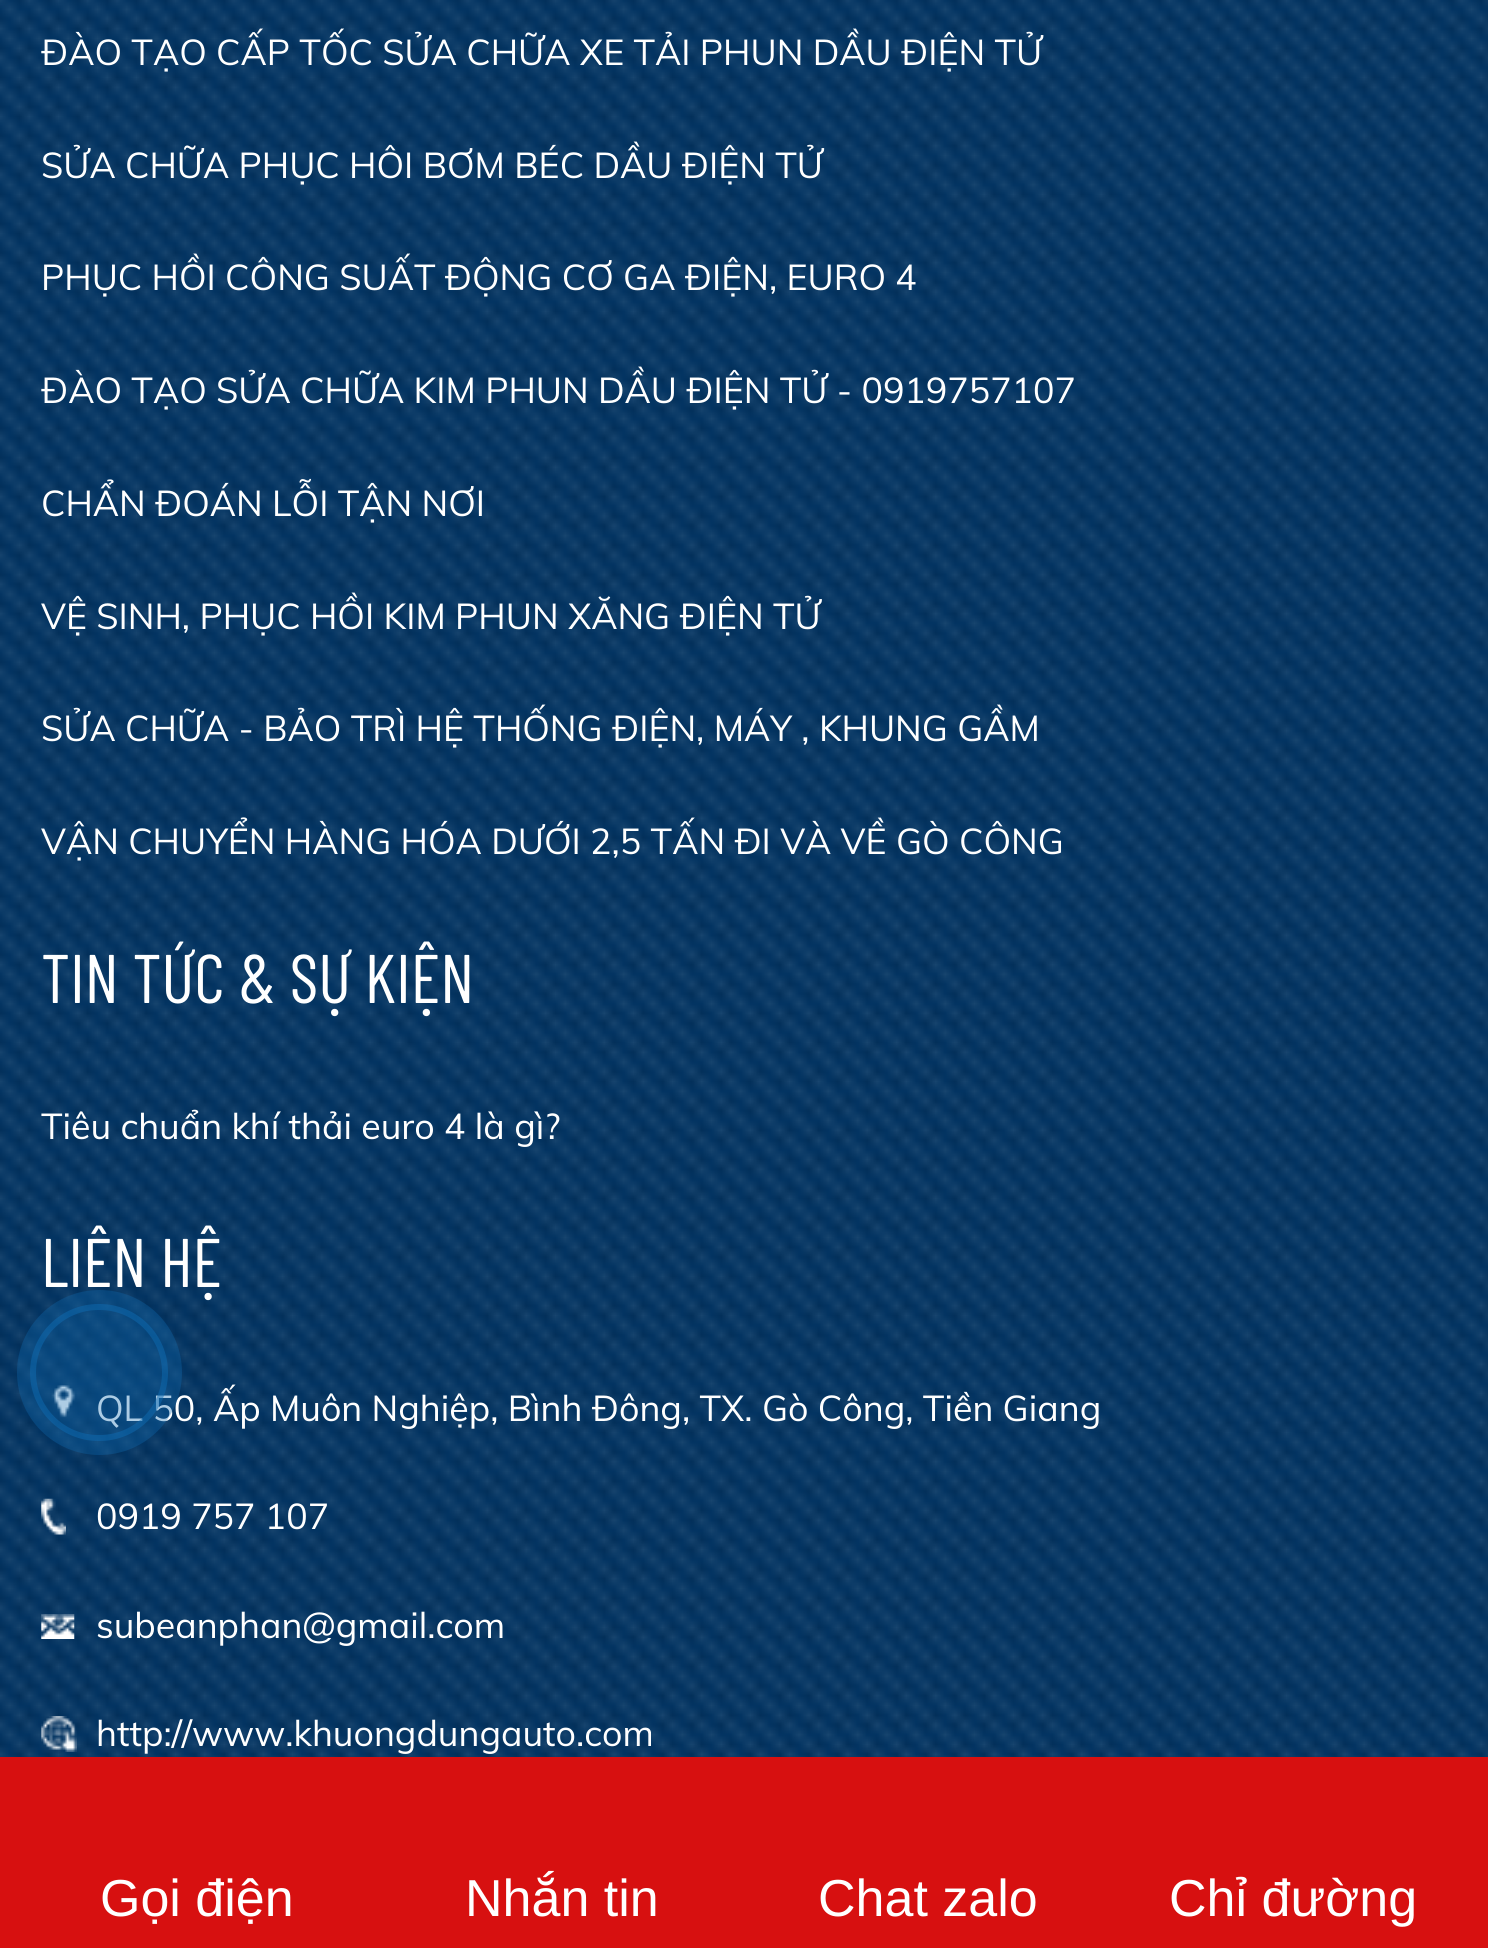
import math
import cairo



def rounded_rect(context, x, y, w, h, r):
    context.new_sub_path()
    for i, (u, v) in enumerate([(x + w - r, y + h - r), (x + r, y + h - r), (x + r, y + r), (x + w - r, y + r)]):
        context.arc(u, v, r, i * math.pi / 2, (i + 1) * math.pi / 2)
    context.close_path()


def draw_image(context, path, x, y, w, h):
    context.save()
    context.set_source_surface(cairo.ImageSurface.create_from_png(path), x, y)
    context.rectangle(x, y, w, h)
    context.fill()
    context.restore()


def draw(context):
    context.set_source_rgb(1, 1, 1)
    context.paint()
    draw_image(context, "images/1.png", 0, 0, 1488, 1757)
    draw_image(context, "images/2.png", 51, 1385, 25, 33)
    draw_image(context, "images/3.png", 41, 1498, 25, 37)
    draw_image(context, "images/4.png", 41, 1614, 34, 25)
    draw_image(context, "images/5.png", 41, 1716, 36, 36)
    context.set_source_rgb(215 / 255, 16 / 255, 16 / 255)
    context.rectangle(0, 1757, 1488, 191)
    context.fill()
    context.select_font_face("Muli")
    context.set_font_size(35.75)
    context.set_source_rgb(1, 1, 1)
    context.move_to(41, 65)
    context.show_text("ĐÀO TẠO CẤP TỐC SỬA CHỮA XE TẢI PHUN DẦU ĐIỆN TỬ")
    context.move_to(41, 178)
    context.show_text("SỬA CHỮA PHỤC HÔI BƠM BÉC DẦU ĐIỆN TỬ")
    context.move_to(41, 290)
    context.show_text("PHỤC HỒI CÔNG SUẤT ĐỘNG CƠ GA ĐIỆN, EURO 4")
    context.move_to(41, 403)
    context.show_text("ĐÀO TẠO SỬA CHỮA KIM PHUN DẦU ĐIỆN TỬ - 0919757107")
    context.move_to(41, 516)
    context.show_text("CHẨN ĐOÁN LỖI TẬN NƠI")
    context.move_to(41, 629)
    context.show_text("VỆ SINH, PHỤC HỒI KIM PHUN XĂNG ĐIỆN TỬ")
    context.move_to(41, 741)
    context.show_text("SỬA CHỮA - BẢO TRÌ HỆ THỐNG ĐIỆN, MÁY , KHUNG GẦM")
    context.move_to(41, 854)
    context.show_text("VẬN CHUYỂN HÀNG HÓA DƯỚI 2,5 TẤN ĐI VÀ VỀ GÒ CÔNG")
    context.select_font_face("Barlow Condensed")
    context.set_font_size(68.75)
    context.move_to(41, 1003)
    context.show_text("TIN TỨC & SỰ KIỆN")
    context.select_font_face("Muli")
    context.set_font_size(35.75)
    context.move_to(41, 1139)
    context.show_text("Tiêu chuẩn khí thải euro 4 là gì?")
    context.select_font_face("Barlow Condensed")
    context.set_font_size(68.75)
    context.move_to(41, 1287)
    context.show_text("LIÊN HỆ")
    context.select_font_face("Muli")
    context.set_font_size(35.75)
    context.move_to(96, 1421)
    context.show_text("QL 50, Ấp Muôn Nghiệp, Bình Đông, TX. Gò Công, Tiền Giang")
    context.move_to(96, 1529)
    context.show_text("0919 757 107")
    context.move_to(96, 1638)
    context.show_text("subeanphan@gmail.com")
    context.move_to(96, 1746)
    context.show_text("http://www.khuongdungauto.com")
    rounded_rect(context, 33, 1307, 132, 131, 65.5)
    context.set_source_rgba(15 / 255, 108 / 255, 178 / 255, 0.5)
    context.set_line_width(6)
    context.stroke()
    context.set_source_rgba(15 / 255, 108 / 255, 178 / 255, 0.34)
    context.arc(99.5, 1372.5, 82.5, 0, 2 * math.pi)
    context.fill()
    context.select_font_face("Liberation Sans")
    context.set_font_size(52)
    context.set_source_rgb(1, 1, 1)
    context.move_to(100, 1916)
    context.show_text("Gọi điện")
    context.move_to(465, 1916)
    context.show_text("Nhắn tin")
    context.move_to(818, 1916)
    context.show_text("Chat zalo")
    context.move_to(1169, 1916)
    context.show_text("Chỉ đường")


surface = cairo.ImageSurface(cairo.Format.RGB24, 1488, 1948)
context = cairo.Context(surface)
options = cairo.FontOptions()
options.set_hint_metrics(cairo.HintMetrics.OFF)
options.set_hint_style(cairo.HintStyle.NONE)
context.set_font_options(options)
context.set_miter_limit(4)
draw(context)
surface.write_to_png("out.png")
